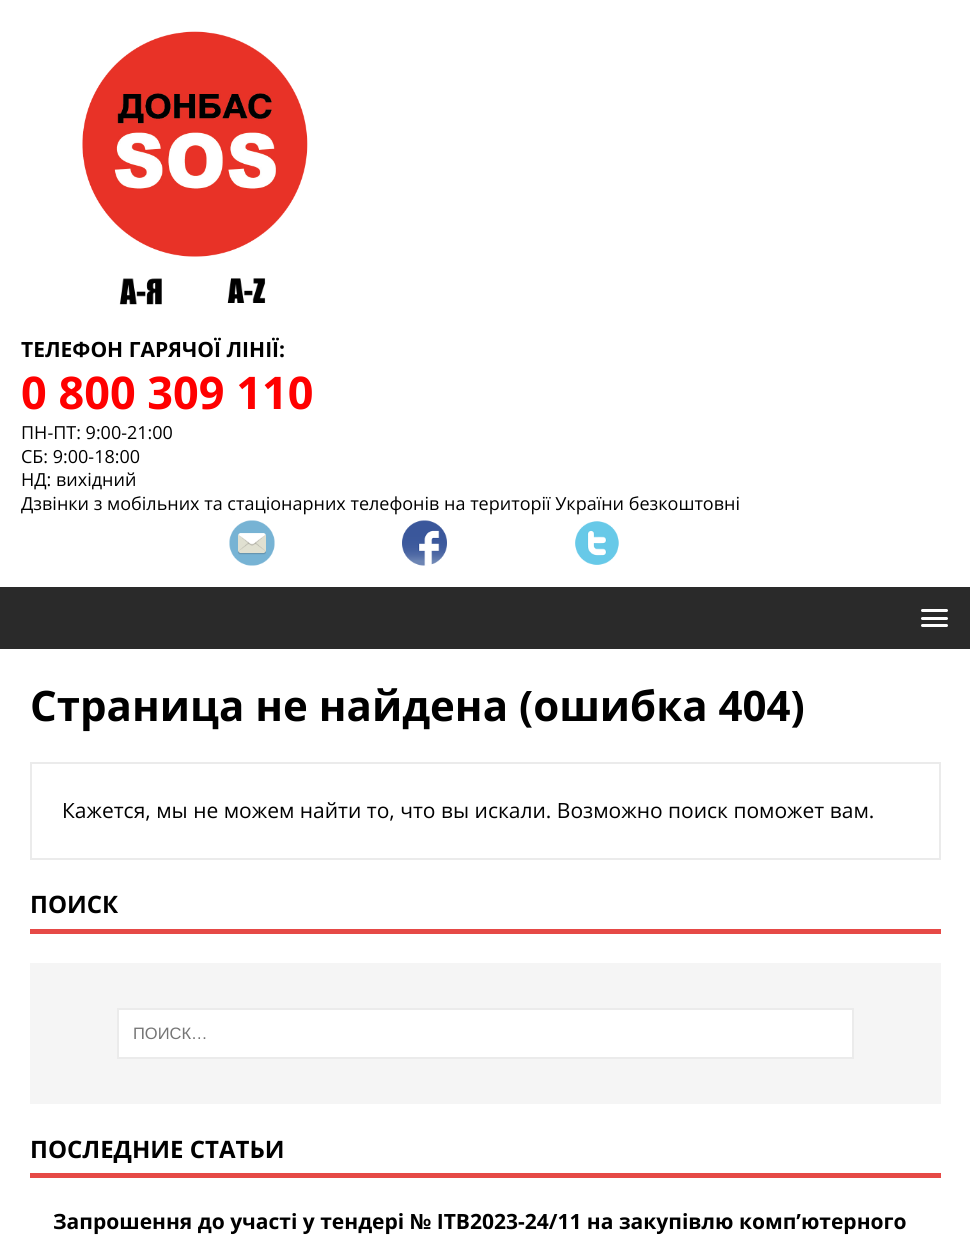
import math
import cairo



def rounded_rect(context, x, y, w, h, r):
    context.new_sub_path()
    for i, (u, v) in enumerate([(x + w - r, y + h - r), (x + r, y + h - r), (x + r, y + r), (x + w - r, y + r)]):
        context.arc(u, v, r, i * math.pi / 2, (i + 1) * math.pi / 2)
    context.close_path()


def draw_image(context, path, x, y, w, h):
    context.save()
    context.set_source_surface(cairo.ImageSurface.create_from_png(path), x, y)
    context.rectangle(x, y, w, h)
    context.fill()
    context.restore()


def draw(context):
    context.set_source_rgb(1, 1, 1)
    context.paint()
    draw_image(context, "images/1.png", 82, 31, 226, 226)
    draw_image(context, "images/2.png", 119, 278, 43, 27)
    draw_image(context, "images/3.png", 227, 278, 39, 25)
    draw_image(context, "images/4.png", 229, 520, 46, 46)
    draw_image(context, "images/5.png", 402, 520, 45, 46)
    draw_image(context, "images/6.png", 575, 521, 44, 44)
    context.set_source_rgb(42 / 255, 42 / 255, 42 / 255)
    context.rectangle(0, 587, 970, 62)
    context.fill()
    context.set_source_rgb(1, 1, 1)
    rounded_rect(context, 921, 609, 27, 3, 1.5)
    context.fill()
    rounded_rect(context, 921, 617, 27, 3, 1.5)
    context.fill()
    rounded_rect(context, 921, 624, 27, 3, 1.5)
    context.fill()
    context.rectangle(31, 763, 909, 96)
    context.set_source_rgb(235 / 255, 235 / 255, 235 / 255)
    context.stroke()
    context.set_source_rgb(230 / 255, 73 / 255, 70 / 255)
    context.rectangle(30, 929, 911, 5)
    context.fill()
    context.set_source_rgb(245 / 255, 245 / 255, 245 / 255)
    context.rectangle(30, 963, 911, 141)
    context.fill()
    context.set_source_rgb(1, 1, 1)
    context.rectangle(118, 1009, 735, 49)
    context.fill_preserve()
    context.set_source_rgb(235 / 255, 235 / 255, 235 / 255)
    context.stroke()
    context.set_source_rgb(230 / 255, 73 / 255, 70 / 255)
    context.rectangle(30, 1173, 911, 5)
    context.fill()
    context.select_font_face("Open Sans", cairo.FontSlant.NORMAL, cairo.FontWeight.BOLD)
    context.set_font_size(21)
    context.set_source_rgb(0, 0, 0)
    context.move_to(21, 357)
    context.show_text("ТЕЛЕФОН ГАРЯЧОЇ ЛІНІЇ:")
    context.set_font_size(45)
    context.set_source_rgb(1, 0, 0)
    context.move_to(21, 409)
    context.show_text("0 800 309 110")
    context.select_font_face("Open Sans")
    context.set_font_size(18)
    context.set_source_rgb(0, 0, 0)
    context.move_to(21, 439)
    context.show_text("ПН-ПТ: 9:00-21:00")
    context.move_to(21, 463)
    context.show_text("СБ: 9:00-18:00")
    context.move_to(21, 486)
    context.show_text("НД: вихідний")
    context.move_to(21, 510)
    context.show_text("Дзвінки з мобільних та стаціонарних телефонів на території України безкоштовні")
    context.select_font_face("Open Sans", cairo.FontSlant.NORMAL, cairo.FontWeight.BOLD)
    context.set_font_size(42)
    context.move_to(30, 721)
    context.show_text("Страница не найдена (ошибка 404)")
    context.select_font_face("Open Sans")
    context.set_font_size(21)
    context.move_to(62, 818)
    context.show_text("Кажется, мы не можем найти то, что вы искали. Возможно поиск поможет вам.")
    context.select_font_face("Open Sans", cairo.FontSlant.NORMAL, cairo.FontWeight.BOLD)
    context.set_font_size(24)
    context.move_to(30, 913)
    context.show_text("ПОИСК")
    context.select_font_face("Liberation Sans")
    context.set_font_size(16.5)
    context.set_source_rgb(117 / 255, 117 / 255, 117 / 255)
    context.move_to(133, 1039)
    context.show_text("ПОИСК…")
    context.select_font_face("Open Sans", cairo.FontSlant.NORMAL, cairo.FontWeight.BOLD)
    context.set_font_size(24)
    context.set_source_rgb(0, 0, 0)
    context.move_to(30, 1158)
    context.show_text("ПОСЛЕДНИЕ СТАТЬИ")
    context.set_font_size(21)
    context.move_to(53, 1229)
    context.show_text("Запрошення до участі у тендері № ITB2023-24/11 на закупівлю комп’ютерного")


surface = cairo.ImageSurface(cairo.Format.RGB24, 970, 1241)
context = cairo.Context(surface)
options = cairo.FontOptions()
options.set_hint_metrics(cairo.HintMetrics.OFF)
options.set_hint_style(cairo.HintStyle.NONE)
context.set_font_options(options)
context.set_miter_limit(4)
draw(context)
surface.write_to_png("out.png")
